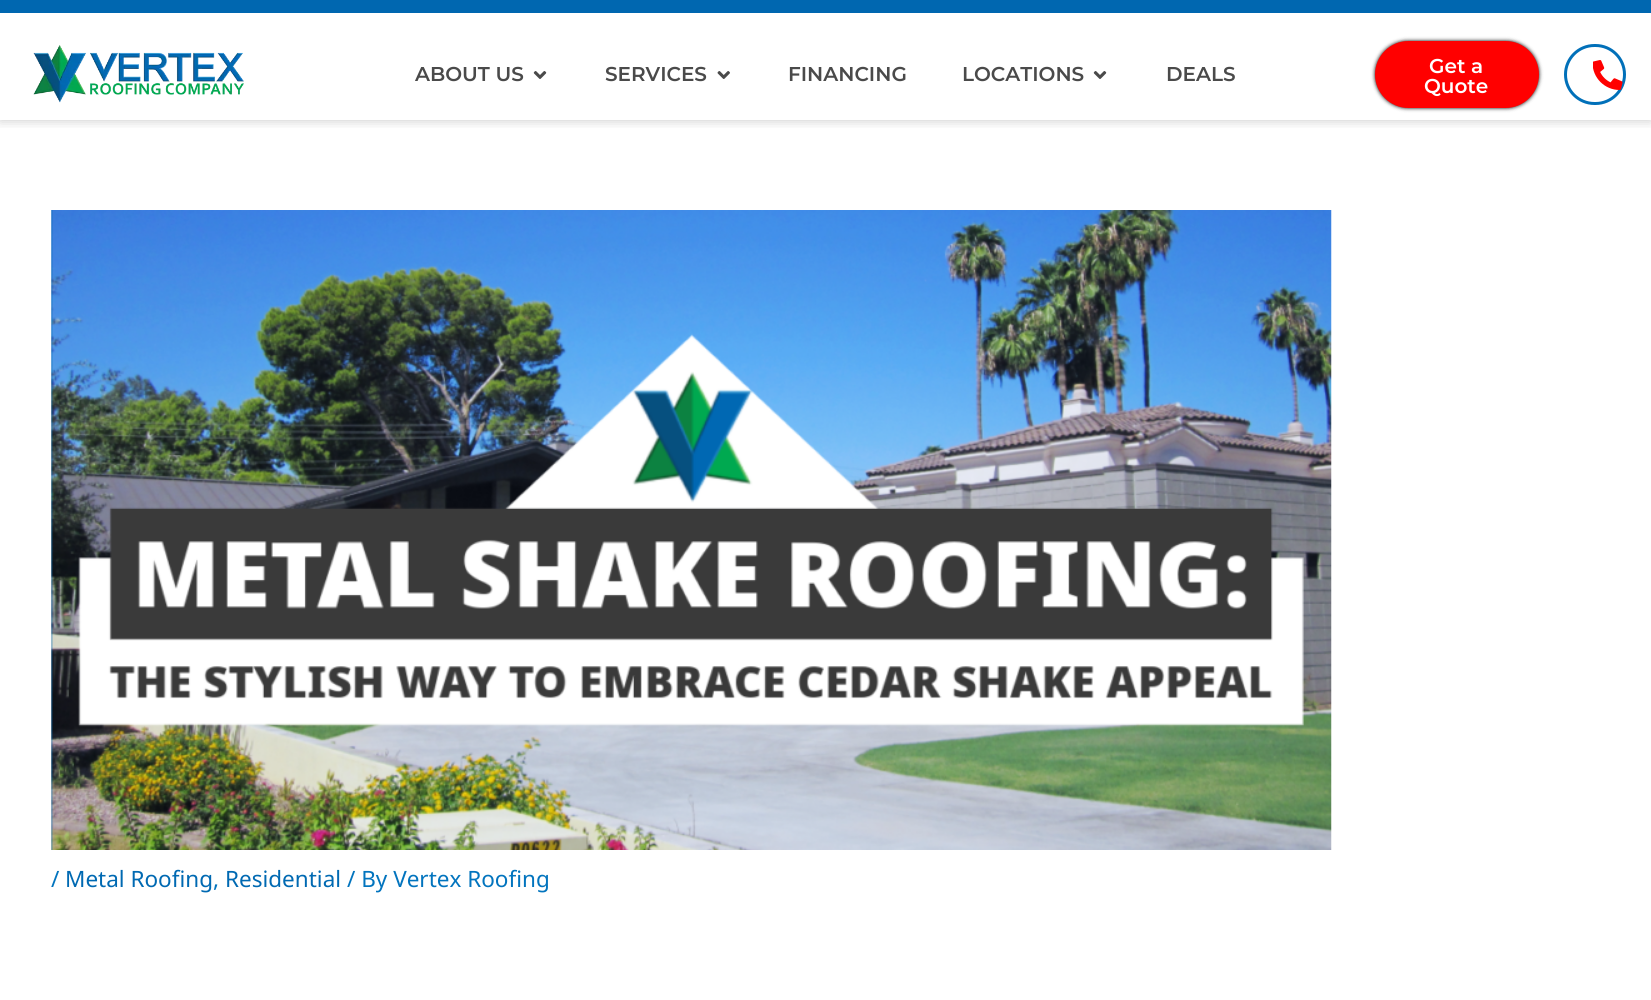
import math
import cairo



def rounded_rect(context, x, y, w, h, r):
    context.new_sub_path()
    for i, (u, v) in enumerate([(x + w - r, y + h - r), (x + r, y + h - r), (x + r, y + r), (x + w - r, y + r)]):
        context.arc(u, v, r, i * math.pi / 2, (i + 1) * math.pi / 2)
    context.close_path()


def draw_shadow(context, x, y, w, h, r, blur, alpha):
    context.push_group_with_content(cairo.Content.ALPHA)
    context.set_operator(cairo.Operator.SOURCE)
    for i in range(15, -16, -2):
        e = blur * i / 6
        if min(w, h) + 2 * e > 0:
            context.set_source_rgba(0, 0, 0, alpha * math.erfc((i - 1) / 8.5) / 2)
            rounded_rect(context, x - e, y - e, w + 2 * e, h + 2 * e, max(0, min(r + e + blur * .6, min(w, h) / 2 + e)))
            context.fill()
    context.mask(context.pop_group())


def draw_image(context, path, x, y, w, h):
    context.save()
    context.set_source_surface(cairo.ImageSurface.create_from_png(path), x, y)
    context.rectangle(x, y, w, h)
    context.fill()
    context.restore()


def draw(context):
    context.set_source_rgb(1, 1, 1)
    context.paint()
    context.save()
    context.rectangle(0, 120, 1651, 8)
    context.clip()
    context.set_source_rgb(0, 0, 0)
    draw_shadow(context, 0, 0, 1651, 120, 0, 6, 0.22)
    context.restore()
    context.set_source_rgb(0, 103 / 255, 176 / 255)
    context.rectangle(0, 0, 1651, 13)
    context.fill()
    draw_image(context, "images/1.png", 33, 45, 211, 58)
    draw_image(context, "images/2.png", 533, 71, 14, 8)
    draw_image(context, "images/3.png", 717, 71, 13, 8)
    draw_image(context, "images/2.png", 1093, 71, 14, 8)
    context.set_source_rgb(0, 0, 0)
    draw_shadow(context, 1375, 41, 164, 67, 33.5, 2, 1)
    context.set_source_rgb(1, 0, 0)
    rounded_rect(context, 1375, 41, 164, 67, 33.5)
    context.fill()
    rounded_rect(context, 1565.5, 45.5, 59, 58, 29)
    context.set_source_rgb(1 / 255, 112 / 255, 185 / 255)
    context.set_line_width(3)
    context.stroke()
    draw_image(context, "images/4.png", 1593, 60, 30, 30)
    draw_image(context, "images/5.png", 51, 210, 1281, 640)
    context.select_font_face("Montserrat SemiBold")
    context.set_font_size(20)
    context.set_source_rgb(74 / 255, 74 / 255, 74 / 255)
    context.move_to(415, 81)
    context.show_text("ABOUT US")
    context.move_to(605, 81)
    context.show_text("SERVICES")
    context.move_to(788, 81)
    context.show_text("FINANCING")
    context.move_to(962, 81)
    context.show_text("LOCATIONS")
    context.move_to(1166, 81)
    context.show_text("DEALS")
    context.set_source_rgb(1, 1, 1)
    context.move_to(1429, 73)
    context.show_text("Get a")
    context.move_to(1424, 93)
    context.show_text("Quote")
    context.select_font_face("Noto Sans")
    context.set_font_size(22.5)
    context.set_source_rgb(2 / 255, 116 / 255, 190 / 255)
    context.move_to(51, 887)
    context.show_text("/")
    context.set_source_rgb(0, 105 / 255, 178 / 255)
    context.move_to(65, 887)
    context.show_text("Metal Roofing")
    context.set_source_rgb(2 / 255, 116 / 255, 190 / 255)
    context.move_to(213, 887)
    context.show_text(",")
    context.set_source_rgb(0, 105 / 255, 178 / 255)
    context.move_to(225, 887)
    context.show_text("Residential")
    context.set_source_rgb(2 / 255, 116 / 255, 190 / 255)
    context.move_to(347, 887)
    context.show_text("/ By Vertex Roofing")


surface = cairo.ImageSurface(cairo.Format.RGB24, 1651, 1000)
context = cairo.Context(surface)
options = cairo.FontOptions()
options.set_hint_metrics(cairo.HintMetrics.OFF)
options.set_hint_style(cairo.HintStyle.NONE)
context.set_font_options(options)
context.set_miter_limit(4)
draw(context)
surface.write_to_png("out.png")
